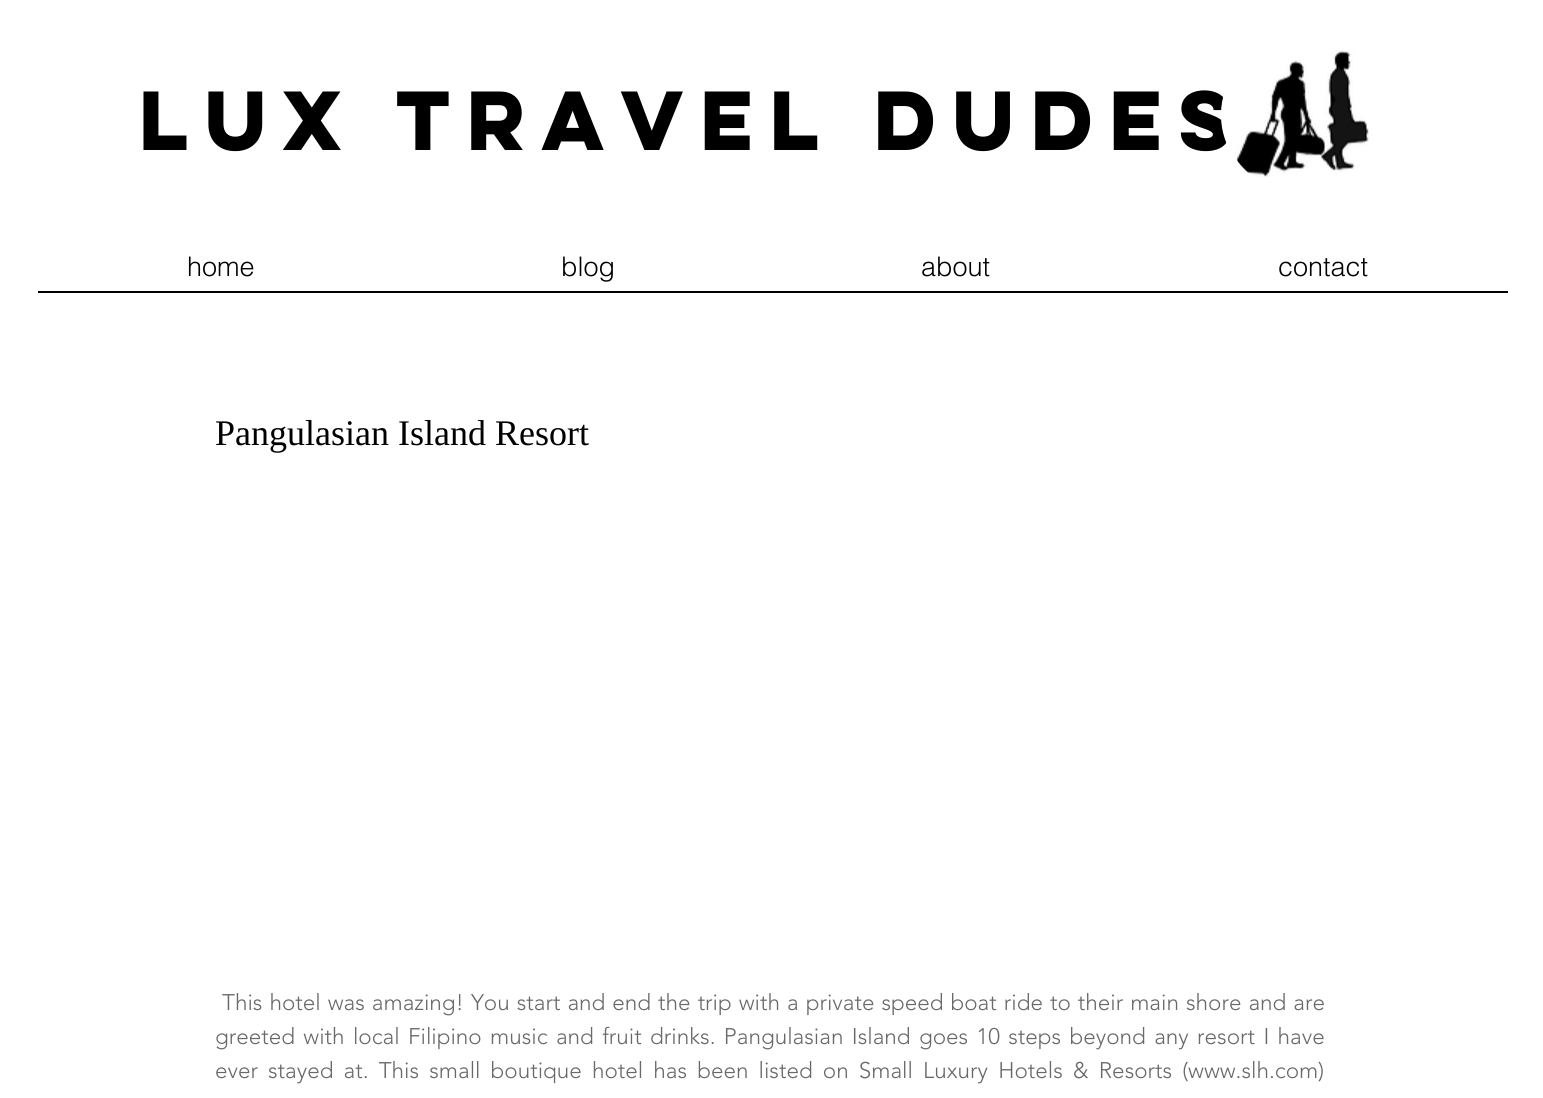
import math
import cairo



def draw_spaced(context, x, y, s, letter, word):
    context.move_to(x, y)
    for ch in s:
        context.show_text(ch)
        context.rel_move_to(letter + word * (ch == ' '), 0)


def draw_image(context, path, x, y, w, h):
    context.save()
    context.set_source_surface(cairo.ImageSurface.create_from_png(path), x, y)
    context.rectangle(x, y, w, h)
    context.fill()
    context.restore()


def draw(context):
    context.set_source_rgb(1, 1, 1)
    context.paint()
    context.set_source_rgb(0, 0, 0)
    context.rectangle(38, 291, 1470, 2)
    context.fill()
    context.select_font_face("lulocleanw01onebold", cairo.FontSlant.NORMAL, cairo.FontWeight.BOLD)
    context.set_font_size(75)
    context.move_to(139, 150)
    context.show_text("Lux Travel Dudes")
    context.set_source_rgb(1, 1, 1)
    context.new_path()
    context.move_to(1307, 35)
    context.curve_to(1354.5, 35, 1393, 71, 1393, 115)
    context.curve_to(1393, 159, 1354.5, 195, 1307, 195)
    context.curve_to(1259.5, 195, 1221, 159, 1221, 115)
    context.curve_to(1221, 71, 1259.5, 35, 1307, 35)
    context.close_path()
    context.fill()
    draw_image(context, "images/1.png", 1221, 50, 148, 127)
    context.select_font_face("helvetica Light")
    context.set_font_size(27)
    context.set_source_rgb(0, 0, 0)
    context.move_to(187, 276)
    context.show_text("home")
    context.move_to(561, 276)
    context.show_text("blog")
    context.move_to(921, 276)
    context.show_text("about")
    context.move_to(1278, 276)
    context.show_text("contact")
    context.select_font_face("Liberation Serif")
    context.set_font_size(36)
    context.move_to(215, 445)
    context.show_text("Pangulasian Island Resort")
    context.select_font_face("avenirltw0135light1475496 Light")
    context.set_font_size(22.5)
    context.set_source_rgb(105 / 255, 105 / 255, 105 / 255)
    draw_spaced(context, 222, 1010, "This hotel was amazing! You start and end the trip with a private speed boat ride to their main shore and are", 0, 1.15)
    draw_spaced(context, 215, 1044, "greeted with local Filipino music and fruit drinks. Pangulasian Island goes 10 steps beyond any resort I have", 0, 2.5)
    draw_spaced(context, 215, 1078, "ever stayed at. This small boutique hotel has been listed on Small Luxury Hotels & Resorts (www.slh.com)", 0, 4.25)


surface = cairo.ImageSurface(cairo.Format.RGB24, 1543, 1098)
context = cairo.Context(surface)
options = cairo.FontOptions()
options.set_hint_metrics(cairo.HintMetrics.OFF)
options.set_hint_style(cairo.HintStyle.NONE)
context.set_font_options(options)
context.set_miter_limit(4)
draw(context)
surface.write_to_png("out.png")
